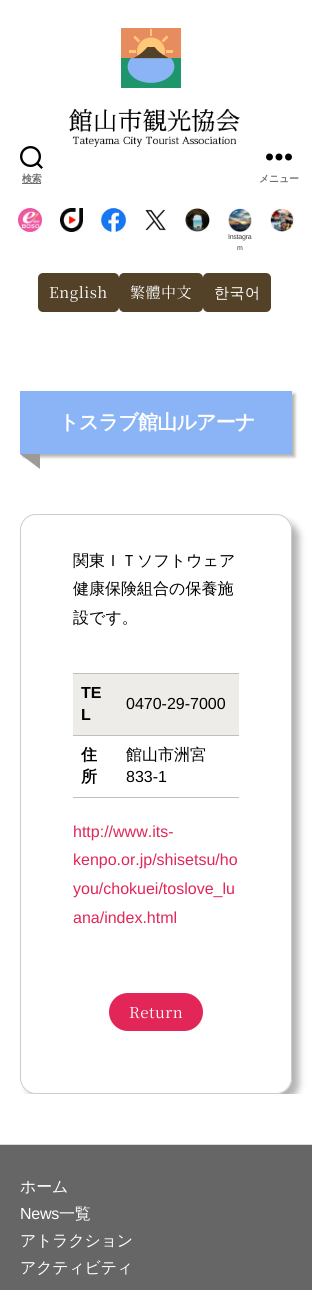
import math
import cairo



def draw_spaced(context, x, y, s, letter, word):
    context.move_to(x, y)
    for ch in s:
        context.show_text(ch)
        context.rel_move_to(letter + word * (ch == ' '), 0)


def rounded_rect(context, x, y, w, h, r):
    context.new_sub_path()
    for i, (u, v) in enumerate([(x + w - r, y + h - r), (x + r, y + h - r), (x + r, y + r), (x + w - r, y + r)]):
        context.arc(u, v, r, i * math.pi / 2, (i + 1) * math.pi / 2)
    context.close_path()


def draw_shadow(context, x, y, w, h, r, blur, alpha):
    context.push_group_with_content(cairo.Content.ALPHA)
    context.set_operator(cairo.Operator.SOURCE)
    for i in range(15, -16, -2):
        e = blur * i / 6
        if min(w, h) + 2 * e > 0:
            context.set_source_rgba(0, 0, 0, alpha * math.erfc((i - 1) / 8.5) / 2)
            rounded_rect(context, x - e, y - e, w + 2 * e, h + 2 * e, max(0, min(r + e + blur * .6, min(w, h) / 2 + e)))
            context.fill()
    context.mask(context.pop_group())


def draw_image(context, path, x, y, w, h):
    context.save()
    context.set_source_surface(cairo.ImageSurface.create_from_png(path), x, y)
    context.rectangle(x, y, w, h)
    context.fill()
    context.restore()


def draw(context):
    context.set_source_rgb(1, 1, 1)
    context.paint()
    draw_image(context, "images/1.png", 121, 28, 60, 60)
    draw_image(context, "images/2.png", 69, 108, 171, 39)
    draw_image(context, "images/3.png", 20, 146, 23, 23)
    context.set_source_rgb(109 / 255, 109 / 255, 109 / 255)
    context.rectangle(22, 183, 19, 1)
    context.fill()
    draw_image(context, "images/4.png", 266, 153, 26, 8)
    draw_image(context, "images/5.png", 18, 208, 24, 24)
    draw_image(context, "images/6.png", 60, 208, 23, 24)
    draw_image(context, "images/7.png", 101, 208, 25, 24)
    draw_image(context, "images/8.png", 145, 209, 21, 22)
    draw_image(context, "images/9.png", 185, 208, 25, 24)
    draw_image(context, "images/10.png", 270, 208, 24, 24)
    draw_image(context, "images/11.png", 228, 208, 24, 24)
    context.set_source_rgb(84 / 255, 66 / 255, 40 / 255)
    rounded_rect(context, 38, 273, 81, 39, 5)
    context.fill()
    rounded_rect(context, 119, 273, 84, 39, 5)
    context.fill()
    rounded_rect(context, 203, 273, 68, 39, 5)
    context.fill()
    context.set_source_rgb(0, 0, 0)
    draw_shadow(context, 23, 394, 272, 63, 0, 1.5, 0.3)
    context.set_source_rgb(139 / 255, 180 / 255, 247 / 255)
    context.rectangle(20, 391, 272, 63)
    context.fill()
    context.set_source_rgb(158 / 255, 154 / 255, 149 / 255)
    context.new_path()
    context.move_to(40, 454)
    context.line_to(40, 469)
    context.line_to(20, 454)
    context.close_path()
    context.fill()
    context.save()
    context.rectangle(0, 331, 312, 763)
    context.clip()
    context.set_fill_rule(cairo.FillRule.EVEN_ODD)
    context.new_path()
    context.move_to(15, 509)
    context.line_to(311, 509)
    context.line_to(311, 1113)
    context.line_to(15, 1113)
    context.close_path()
    context.move_to(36, 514)
    context.line_to(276, 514)
    context.curve_to(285, 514, 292, 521, 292, 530)
    context.line_to(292, 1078)
    context.curve_to(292, 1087, 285, 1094, 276, 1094)
    context.line_to(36, 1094)
    context.curve_to(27, 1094, 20, 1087, 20, 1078)
    context.line_to(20, 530)
    context.curve_to(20, 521, 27, 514, 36, 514)
    context.close_path()
    context.clip()
    context.set_source_rgb(0, 0, 0)
    draw_shadow(context, 27, 521, 272, 580, 16, 3.5, 0.3)
    context.restore()
    rounded_rect(context, 20.5, 514.5, 271, 579, 15.5)
    context.set_source_rgb(204 / 255, 204 / 255, 204 / 255)
    context.set_line_width(1)
    context.stroke()
    context.set_source_rgb(238 / 255, 236 / 255, 233 / 255)
    context.rectangle(73, 674, 166, 61)
    context.fill()
    context.set_source_rgb(197 / 255, 190 / 255, 180 / 255)
    context.rectangle(73, 673, 166, 1)
    context.fill()
    context.rectangle(73, 735, 166, 1)
    context.fill()
    context.rectangle(73, 797, 166, 1)
    context.fill()
    context.set_source_rgb(226 / 255, 38 / 255, 88 / 255)
    rounded_rect(context, 109, 993, 94, 38, 19)
    context.fill()
    context.set_source_rgb(102 / 255, 102 / 255, 102 / 255)
    context.rectangle(0, 1145, 312, 145)
    context.fill()
    context.set_source_rgb(219 / 255, 219 / 255, 219 / 255)
    context.rectangle(0, 1144, 312, 1)
    context.fill()
    context.select_font_face("WenQuanYi Zen Hei", cairo.FontSlant.NORMAL, cairo.FontWeight.BOLD)
    context.set_font_size(10)
    context.set_source_rgb(109 / 255, 109 / 255, 109 / 255)
    draw_spaced(context, 22, 182, "検索", -0.25, 0)
    draw_spaced(context, 259, 182, "メニュー", -0.25, 0)
    context.select_font_face("Liberation Sans")
    context.set_font_size(7)
    context.set_source_rgb(59 / 255, 59 / 255, 59 / 255)
    draw_spaced(context, 228, 239, "Instagra", -0.25, 0)
    draw_spaced(context, 237, 250, "m", -0.25, 0)
    context.select_font_face("Noto Serif JP")
    context.set_font_size(15)
    context.set_source_rgb(1, 1, 1)
    draw_spaced(context, 49, 298, "English", 0.5, 0)
    draw_spaced(context, 130, 298, "繁體中文", 0.5, 0)
    context.select_font_face("WenQuanYi Zen Hei Medium")
    draw_spaced(context, 214, 298, "한국어", 0.5, 0)
    context.select_font_face("WenQuanYi Zen Hei", cairo.FontSlant.NORMAL, cairo.FontWeight.BOLD)
    context.set_font_size(20)
    draw_spaced(context, 59, 429, "トスラブ館山ルアーナ", -0.75, 0)
    context.select_font_face("WenQuanYi Zen Hei Medium")
    context.set_font_size(16)
    context.set_source_rgb(0, 0, 0)
    context.move_to(73, 566)
    context.show_text("関東ＩＴソフトウェア")
    context.move_to(73, 594)
    context.show_text("健康保険組合の保養施")
    context.move_to(73, 623)
    context.show_text("設です。")
    context.select_font_face("Liberation Sans", cairo.FontSlant.NORMAL, cairo.FontWeight.BOLD)
    context.move_to(81, 698)
    context.show_text("TE")
    context.move_to(81, 720)
    context.show_text("L")
    context.select_font_face("Liberation Sans")
    context.move_to(126, 709)
    context.show_text("0470-29-7000")
    context.select_font_face("WenQuanYi Zen Hei", cairo.FontSlant.NORMAL, cairo.FontWeight.BOLD)
    context.move_to(81, 760)
    context.show_text("住")
    context.move_to(81, 782)
    context.show_text("所")
    context.select_font_face("WenQuanYi Zen Hei Medium")
    context.move_to(126, 760)
    context.show_text("館山市洲宮")
    context.select_font_face("Liberation Sans")
    context.move_to(126, 782)
    context.show_text("833-1")
    context.set_source_rgb(226 / 255, 38 / 255, 88 / 255)
    context.move_to(73, 837)
    context.show_text("http://www.its-")
    context.move_to(73, 865)
    context.show_text("kenpo.or.jp/shisetsu/ho")
    context.move_to(73, 894)
    context.show_text("you/chokuei/toslove_lu")
    context.move_to(73, 923)
    context.show_text("ana/index.html")
    context.select_font_face("Noto Serif JP")
    context.set_font_size(15)
    context.set_source_rgb(1, 1, 1)
    draw_spaced(context, 129, 1018, "Return", 0.5, 0)
    context.select_font_face("WenQuanYi Zen Hei Medium")
    context.set_font_size(16)
    draw_spaced(context, 20, 1192, "ホーム", -0.25, 0)
    context.select_font_face("Liberation Sans")
    draw_spaced(context, 20, 1219, "News", -0.25, 0)
    context.select_font_face("WenQuanYi Zen Hei Medium")
    draw_spaced(context, 59, 1219, "一覧", -0.25, 0)
    draw_spaced(context, 20, 1246, "アトラクション", -0.25, 0)
    draw_spaced(context, 20, 1273, "アクティビティ", -0.25, 0)


surface = cairo.ImageSurface(cairo.Format.RGB24, 312, 1290)
context = cairo.Context(surface)
options = cairo.FontOptions()
options.set_hint_metrics(cairo.HintMetrics.OFF)
options.set_hint_style(cairo.HintStyle.NONE)
context.set_font_options(options)
context.set_miter_limit(4)
draw(context)
surface.write_to_png("out.png")
